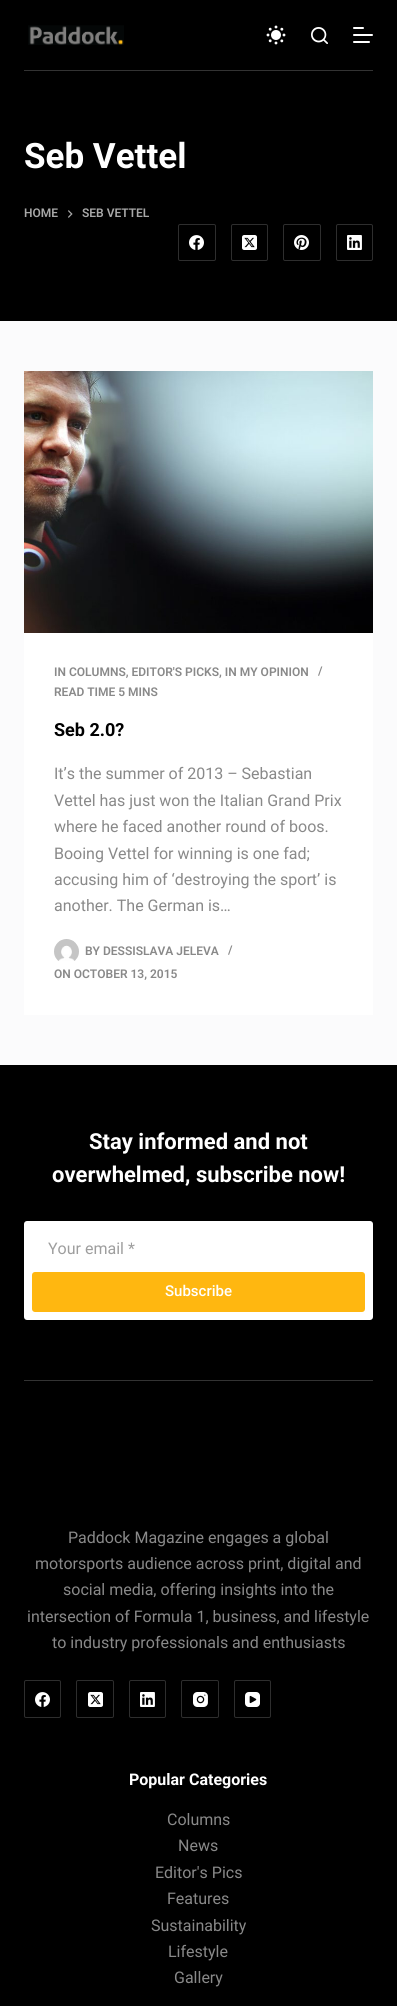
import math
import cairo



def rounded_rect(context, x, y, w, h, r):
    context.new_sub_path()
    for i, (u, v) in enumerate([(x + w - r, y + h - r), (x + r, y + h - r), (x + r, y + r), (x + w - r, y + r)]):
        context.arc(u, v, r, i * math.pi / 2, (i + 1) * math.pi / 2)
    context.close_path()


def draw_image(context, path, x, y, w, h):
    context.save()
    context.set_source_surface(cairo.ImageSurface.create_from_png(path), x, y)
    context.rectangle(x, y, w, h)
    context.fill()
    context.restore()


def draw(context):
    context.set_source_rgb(251 / 255, 251 / 255, 252 / 255)
    context.paint()
    context.set_source_rgb(0, 0, 0)
    context.rectangle(0, 0, 397, 321)
    context.fill()
    draw_image(context, "images/1.png", 28, 25, 96, 20)
    draw_image(context, "images/2.png", 266, 25, 20, 20)
    draw_image(context, "images/3.png", 311, 27, 17, 17)
    context.set_source_rgb(1, 1, 1)
    rounded_rect(context, 353, 27, 11, 2, 1)
    context.fill()
    rounded_rect(context, 353, 34, 20, 2, 1)
    context.fill()
    rounded_rect(context, 353, 41, 17, 2, 1)
    context.fill()
    context.set_source_rgb(51 / 255, 51 / 255, 51 / 255)
    context.rectangle(24, 70, 349, 1)
    context.fill()
    draw_image(context, "images/4.png", 68, 210, 5, 8)
    rounded_rect(context, 178.5, 224.5, 37, 36, 1.5)
    context.set_source_rgb(46 / 255, 46 / 255, 46 / 255)
    context.set_line_width(1)
    context.stroke()
    draw_image(context, "images/5.png", 189, 235, 15, 15)
    rounded_rect(context, 231.5, 224.5, 36, 36, 1.5)
    context.stroke()
    draw_image(context, "images/6.png", 242, 235, 15, 15)
    rounded_rect(context, 283.5, 224.5, 37, 36, 1.5)
    context.stroke()
    draw_image(context, "images/7.png", 294, 235, 15, 15)
    rounded_rect(context, 336.5, 224.5, 36, 36, 1.5)
    context.stroke()
    draw_image(context, "images/8.png", 347, 235, 15, 15)
    context.set_source_rgb(1, 1, 1)
    context.rectangle(24, 633, 349, 382)
    context.fill()
    draw_image(context, "images/9.png", 24, 371, 349, 262)
    draw_image(context, "images/10.png", 54, 939, 25, 22)
    context.set_source_rgb(0, 0, 0)
    context.rectangle(0, 1065, 397, 941)
    context.fill()
    context.set_source_rgb(1, 1, 1)
    rounded_rect(context, 24, 1221, 349, 99, 3)
    context.fill()
    context.set_source_rgb(1, 183 / 255, 16 / 255)
    rounded_rect(context, 32, 1272, 333, 40, 3)
    context.fill()
    context.set_source_rgb(51 / 255, 51 / 255, 51 / 255)
    context.rectangle(24, 1380, 349, 1)
    context.fill()
    rounded_rect(context, 24.5, 1680.5, 36, 37, 1.5)
    context.set_source_rgb(46 / 255, 46 / 255, 46 / 255)
    context.stroke()
    draw_image(context, "images/5.png", 35, 1692, 15, 15)
    rounded_rect(context, 76.5, 1680.5, 37, 37, 1.5)
    context.stroke()
    draw_image(context, "images/6.png", 88, 1692, 15, 15)
    rounded_rect(context, 129.5, 1680.5, 36, 37, 1.5)
    context.stroke()
    draw_image(context, "images/8.png", 140, 1692, 15, 15)
    rounded_rect(context, 181.5, 1680.5, 37, 37, 1.5)
    context.stroke()
    draw_image(context, "images/11.png", 193, 1692, 15, 15)
    rounded_rect(context, 234.5, 1680.5, 36, 37, 1.5)
    context.stroke()
    draw_image(context, "images/12.png", 245, 1692, 15, 15)
    context.select_font_face("Roboto", cairo.FontSlant.NORMAL, cairo.FontWeight.BOLD)
    context.set_font_size(35)
    context.set_source_rgb(1, 1, 1)
    context.move_to(24, 168)
    context.show_text("Seb Vettel")
    context.select_font_face("Roboto SemiBold")
    context.set_font_size(12)
    context.set_source_rgb(168 / 255, 168 / 255, 168 / 255)
    context.move_to(24, 217)
    context.show_text("HOME")
    context.move_to(82, 217)
    context.show_text("SEB VETTEL")
    context.set_source_rgb(137 / 255, 137 / 255, 137 / 255)
    context.move_to(54, 676)
    context.show_text("IN COLUMNS, EDITOR'S PICKS, IN MY OPINION")
    context.move_to(318, 675)
    context.show_text("/")
    context.move_to(54, 696)
    context.show_text("READ TIME 5 MINS")
    context.select_font_face("Roboto", cairo.FontSlant.NORMAL, cairo.FontWeight.BOLD)
    context.set_font_size(18)
    context.set_source_rgb(0, 0, 0)
    context.move_to(54, 736)
    context.show_text("Seb 2.0?")
    context.select_font_face("Roboto")
    context.set_font_size(16)
    context.set_source_rgb(137 / 255, 137 / 255, 137 / 255)
    context.move_to(54, 779)
    context.show_text("It’s the summer of 2013 – Sebastian")
    context.move_to(54, 806)
    context.show_text("Vettel has just won the Italian Grand Prix")
    context.move_to(54, 832)
    context.show_text("where he faced another round of boos.")
    context.move_to(54, 859)
    context.show_text("Booing Vettel for winning is one fad;")
    context.move_to(54, 885)
    context.show_text("accusing him of ‘destroying the sport’ is")
    context.move_to(54, 911)
    context.show_text("another. The German is…")
    context.select_font_face("Roboto SemiBold")
    context.set_font_size(12)
    context.move_to(85, 955)
    context.show_text("BY DESSISLAVA JELEVA")
    context.move_to(228, 954)
    context.show_text("/")
    context.move_to(54, 978)
    context.show_text("ON OCTOBER 13, 2015")
    context.select_font_face("Roboto", cairo.FontSlant.NORMAL, cairo.FontWeight.BOLD)
    context.set_font_size(22)
    context.set_source_rgb(1, 1, 1)
    context.move_to(89, 1149)
    context.show_text("Stay informed and not")
    context.move_to(52, 1182)
    context.show_text("overwhelmed, subscribe now!")
    context.select_font_face("Roboto")
    context.set_font_size(16)
    context.set_source_rgb(158 / 255, 158 / 255, 158 / 255)
    context.move_to(48, 1254)
    context.show_text("Your email *")
    context.select_font_face("Roboto Medium")
    context.set_font_size(15)
    context.set_source_rgb(1, 1, 1)
    context.move_to(165, 1296)
    context.show_text("Subscribe")
    context.select_font_face("Roboto")
    context.set_font_size(16)
    context.set_source_rgb(137 / 255, 137 / 255, 137 / 255)
    context.move_to(68, 1543)
    context.show_text("Paddock Magazine engages a global")
    context.move_to(35, 1569)
    context.show_text("motorsports audience across print, digital and")
    context.move_to(63, 1595)
    context.show_text("social media, offering insights into the")
    context.move_to(27, 1622)
    context.show_text("intersection of Formula 1, business, and lifestyle")
    context.move_to(52, 1648)
    context.show_text("to industry professionals and enthusiasts")
    context.select_font_face("Roboto", cairo.FontSlant.NORMAL, cairo.FontWeight.BOLD)
    context.set_source_rgb(1, 1, 1)
    context.move_to(129, 1785)
    context.show_text("Popular Categories")
    context.select_font_face("Roboto")
    context.set_source_rgb(137 / 255, 137 / 255, 137 / 255)
    context.move_to(167, 1825)
    context.show_text("Columns")
    context.move_to(178, 1851)
    context.show_text("News")
    context.move_to(155, 1878)
    context.show_text("Editor's Pics")
    context.move_to(167, 1904)
    context.show_text("Features")
    context.move_to(151, 1931)
    context.show_text("Sustainability")
    context.move_to(168, 1957)
    context.show_text("Lifestyle")
    context.move_to(174, 1983)
    context.show_text("Gallery")


surface = cairo.ImageSurface(cairo.Format.RGB24, 397, 2006)
context = cairo.Context(surface)
options = cairo.FontOptions()
options.set_hint_metrics(cairo.HintMetrics.OFF)
options.set_hint_style(cairo.HintStyle.NONE)
context.set_font_options(options)
context.set_miter_limit(4)
draw(context)
surface.write_to_png("out.png")
